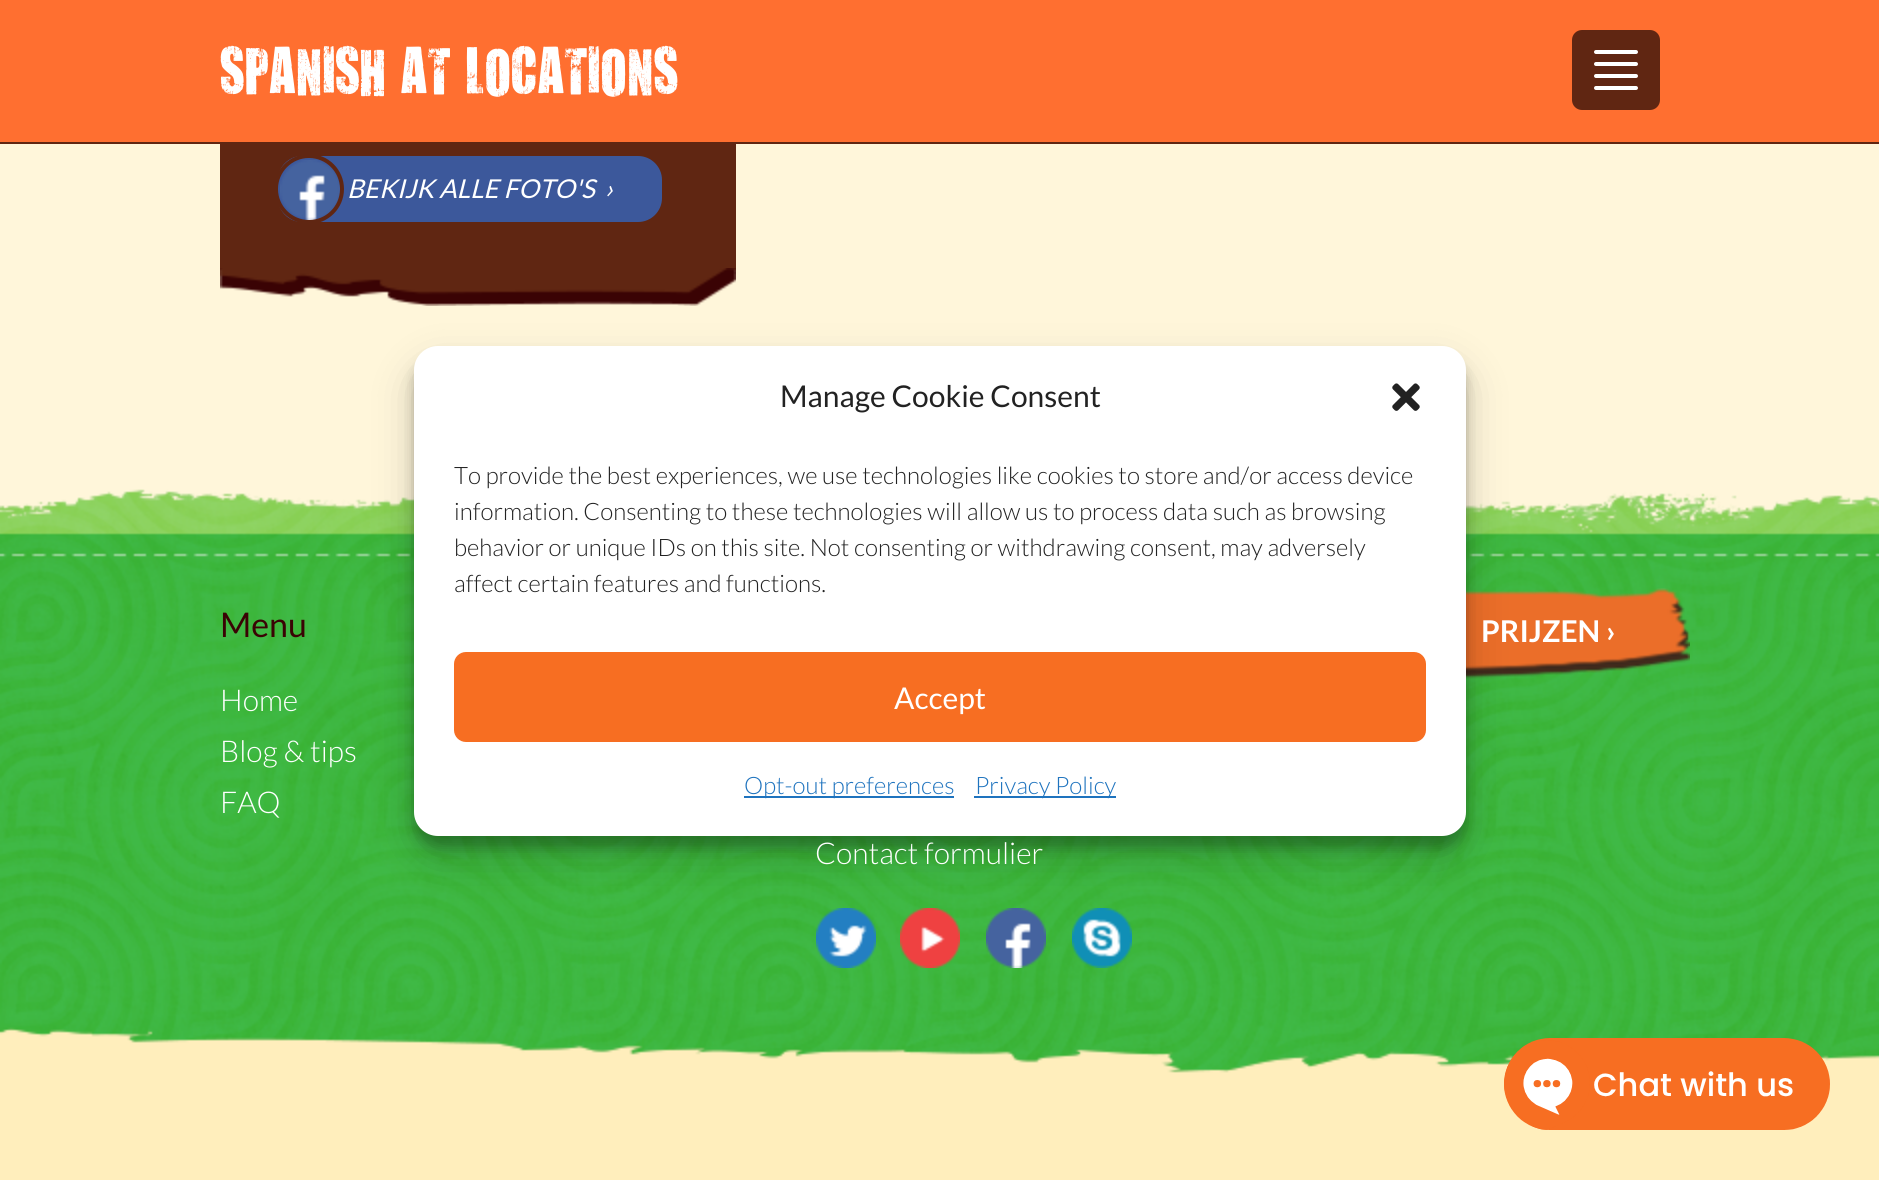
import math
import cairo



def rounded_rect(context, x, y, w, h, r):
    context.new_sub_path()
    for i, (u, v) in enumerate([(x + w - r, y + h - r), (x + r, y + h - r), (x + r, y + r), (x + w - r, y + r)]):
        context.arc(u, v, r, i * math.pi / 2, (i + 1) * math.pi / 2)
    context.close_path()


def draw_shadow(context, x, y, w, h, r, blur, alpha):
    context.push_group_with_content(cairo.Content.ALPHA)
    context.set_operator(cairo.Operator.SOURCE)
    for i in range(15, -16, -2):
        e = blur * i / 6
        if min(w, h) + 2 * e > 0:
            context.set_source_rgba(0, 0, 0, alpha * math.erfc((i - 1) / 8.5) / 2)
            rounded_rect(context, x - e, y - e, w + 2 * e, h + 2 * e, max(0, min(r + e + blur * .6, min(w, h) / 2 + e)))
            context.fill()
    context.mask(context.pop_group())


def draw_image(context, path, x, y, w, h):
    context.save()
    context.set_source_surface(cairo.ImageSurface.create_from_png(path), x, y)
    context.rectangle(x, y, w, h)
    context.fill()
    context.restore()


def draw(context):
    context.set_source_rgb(1, 246 / 255, 218 / 255)
    context.paint()
    context.set_source_rgb(1, 111 / 255, 48 / 255)
    context.rectangle(0, 0, 1879, 142)
    context.fill()
    context.set_source_rgb(96 / 255, 38 / 255, 18 / 255)
    context.rectangle(0, 142, 1879, 2)
    context.fill()
    rounded_rect(context, 1573, 31, 86, 78, 9)
    context.fill_preserve()
    context.stroke()
    context.set_source_rgb(1, 1, 1)
    rounded_rect(context, 1594, 50, 44, 4, 2)
    context.fill()
    rounded_rect(context, 1594, 62, 44, 4, 2)
    context.fill()
    rounded_rect(context, 1594, 74, 44, 4, 2)
    context.fill()
    rounded_rect(context, 1594, 86, 44, 4, 2)
    context.fill()
    context.set_source_rgb(96 / 255, 38 / 255, 18 / 255)
    context.rectangle(220, 144, 516, 124)
    context.fill()
    context.set_source_rgb(60 / 255, 88 / 255, 155 / 255)
    rounded_rect(context, 275, 153, 390, 72, 27)
    context.fill_preserve()
    context.set_source_rgb(96 / 255, 38 / 255, 18 / 255)
    context.set_line_width(6)
    context.stroke()
    draw_image(context, "images/1.png", 280, 160, 60, 60)
    context.arc(309, 189, 33, 0, 2 * math.pi)
    context.set_line_width(4)
    context.stroke()
    draw_image(context, "images/2.png", 220, 268, 516, 38)
    draw_image(context, "images/3.png", 0, 489, 1879, 691)
    draw_image(context, "images/4.png", 1466, 588, 224, 91)
    draw_image(context, "images/5.png", 816, 908, 60, 60)
    draw_image(context, "images/6.png", 900, 908, 60, 60)
    draw_image(context, "images/7.png", 986, 908, 60, 60)
    draw_image(context, "images/8.png", 1072, 908, 60, 60)
    context.set_source_rgb(0, 0, 0)
    draw_shadow(context, 414, 358, 1052, 490, 24, 6, 0.23)
    draw_shadow(context, 414, 366, 1052, 490, 24, 20, 0.19)
    context.set_source_rgb(1, 1, 1)
    rounded_rect(context, 414, 346, 1052, 490, 24)
    context.fill()
    draw_image(context, "images/9.png", 1392, 383, 28, 28)
    context.set_source_rgb(247 / 255, 110 / 255, 34 / 255)
    rounded_rect(context, 455, 653, 970, 88, 11)
    context.fill_preserve()
    context.set_line_width(2)
    context.stroke()
    context.set_source_rgb(30 / 255, 115 / 255, 190 / 255)
    context.rectangle(744, 796, 210, 2)
    context.fill()
    context.rectangle(974, 796, 142, 2)
    context.fill()
    draw_image(context, "images/10.png", 1504, 1038, 326, 92)
    context.select_font_face("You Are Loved")
    context.set_font_size(54)
    context.set_source_rgb(1, 1, 1)
    context.move_to(220, 93)
    context.show_text("SPANISH AT LOCATIONS")
    context.select_font_face("Lato", cairo.FontSlant.ITALIC)
    context.set_font_size(26)
    context.move_to(347, 198)
    context.show_text("BEKIJK ALLE FOTO'S  ›")
    context.select_font_face("Lato")
    context.set_font_size(34)
    context.set_source_rgb(58 / 255, 3 / 255, 4 / 255)
    context.move_to(220, 637)
    context.show_text("Menu")
    context.select_font_face("Lato Light")
    context.set_font_size(30)
    context.set_source_rgb(1, 1, 1)
    context.move_to(220, 711)
    context.show_text("Home")
    context.move_to(220, 762)
    context.show_text("Blog & tips")
    context.move_to(220, 813)
    context.show_text("FAQ")
    context.select_font_face("Lato", cairo.FontSlant.NORMAL, cairo.FontWeight.BOLD)
    context.move_to(1481, 642)
    context.show_text("PRIJZEN ›")
    context.select_font_face("Lato Light")
    context.move_to(815, 864)
    context.show_text("Contact formulier")
    context.select_font_face("Lato")
    context.set_source_rgb(34 / 255, 34 / 255, 34 / 255)
    context.move_to(780, 407)
    context.show_text("Manage Cookie Consent")
    context.select_font_face("Lato Light")
    context.set_font_size(24)
    context.move_to(454, 484)
    context.show_text("To provide the best experiences, we use technologies like cookies to store and/or access device")
    context.move_to(454, 520)
    context.show_text("information. Consenting to these technologies will allow us to process data such as browsing")
    context.move_to(454, 556)
    context.show_text("behavior or unique IDs on this site. Not consenting or withdrawing consent, may adversely")
    context.move_to(454, 592)
    context.show_text("affect certain features and functions.")
    context.select_font_face("Lato")
    context.set_font_size(30)
    context.set_source_rgb(1, 1, 1)
    context.move_to(894, 709)
    context.show_text("Accept")
    context.select_font_face("Lato Light")
    context.set_font_size(24)
    context.set_source_rgb(30 / 255, 115 / 255, 190 / 255)
    context.move_to(744, 794)
    context.show_text("Opt-out preferences")
    context.move_to(975, 794)
    context.show_text("Privacy Policy")


surface = cairo.ImageSurface(cairo.Format.RGB24, 1879, 1180)
context = cairo.Context(surface)
options = cairo.FontOptions()
options.set_hint_metrics(cairo.HintMetrics.OFF)
options.set_hint_style(cairo.HintStyle.NONE)
context.set_font_options(options)
context.set_miter_limit(4)
draw(context)
surface.write_to_png("out.png")
